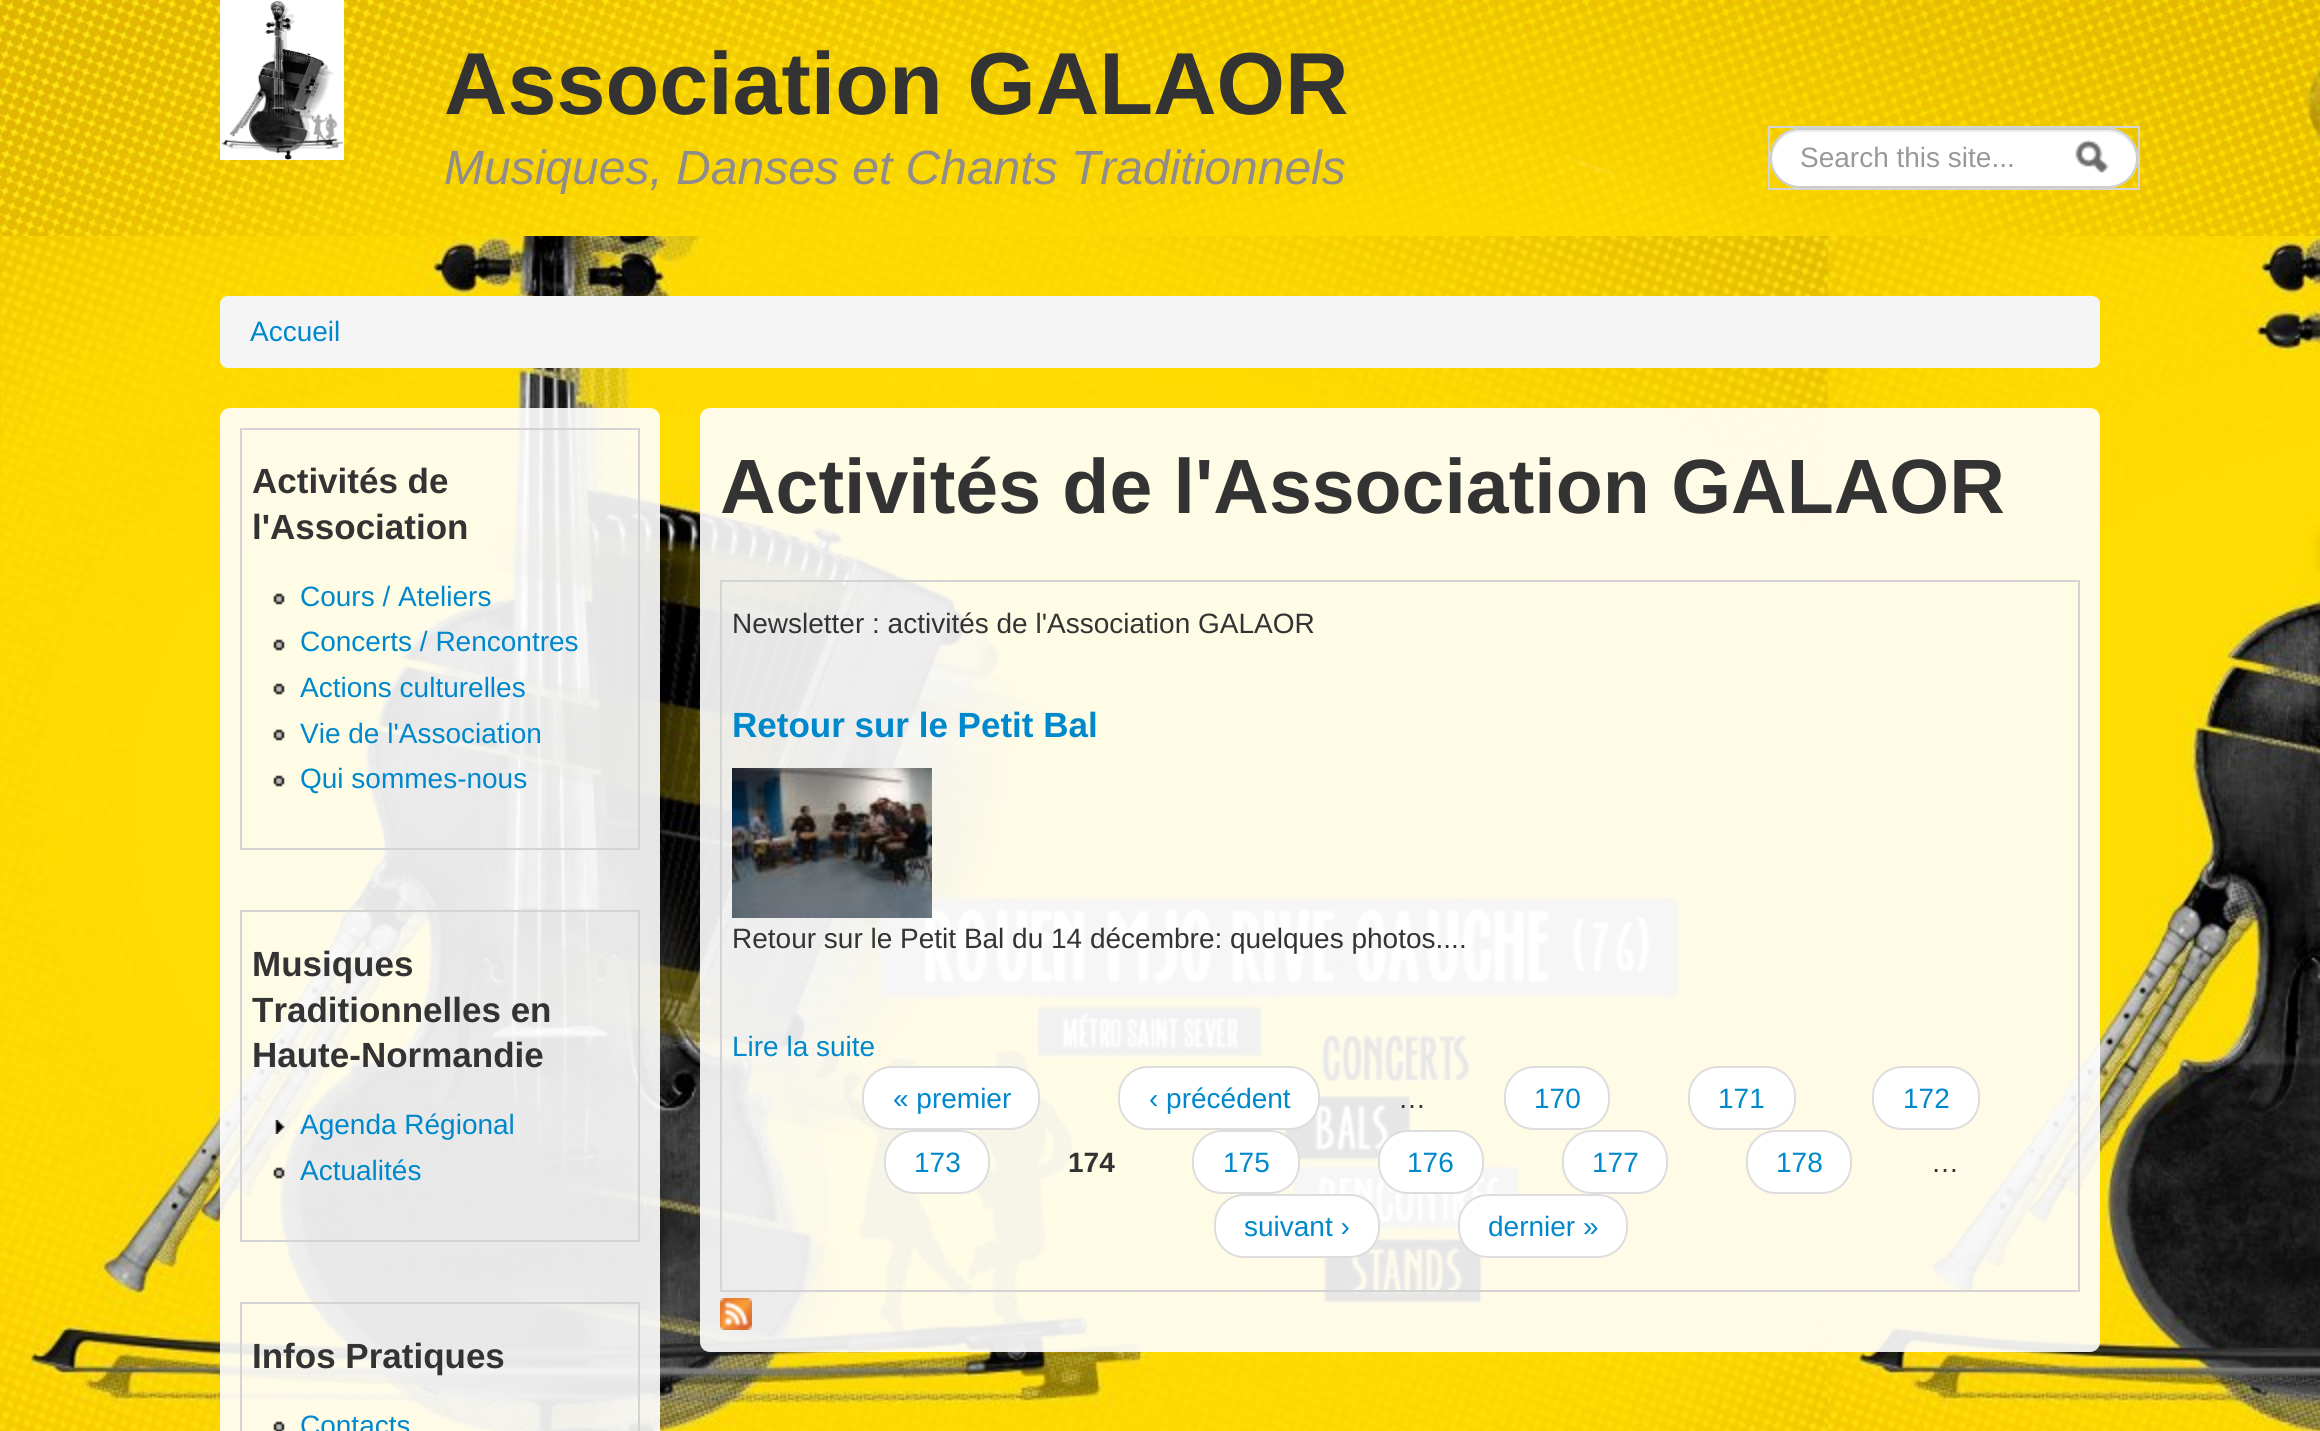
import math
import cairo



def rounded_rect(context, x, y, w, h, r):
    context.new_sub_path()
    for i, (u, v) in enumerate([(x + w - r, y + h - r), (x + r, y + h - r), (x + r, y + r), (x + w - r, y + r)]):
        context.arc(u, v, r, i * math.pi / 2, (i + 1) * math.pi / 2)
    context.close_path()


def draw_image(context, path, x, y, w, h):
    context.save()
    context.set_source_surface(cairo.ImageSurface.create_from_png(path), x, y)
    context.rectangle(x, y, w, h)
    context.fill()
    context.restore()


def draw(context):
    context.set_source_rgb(1, 1, 1)
    context.paint()
    draw_image(context, "images/1.png", 0, 0, 2320, 1431)
    draw_image(context, "images/2.png", 0, 0, 2320, 236)
    draw_image(context, "images/3.png", 220, 0, 124, 160)
    context.rectangle(1769, 127, 370, 62)
    context.set_source_rgb(212 / 255, 212 / 255, 212 / 255)
    context.stroke()
    context.set_source_rgb(1, 1, 1)
    rounded_rect(context, 1770, 128, 368, 60, 30)
    context.fill()
    context.set_source_rgb(236 / 255, 236 / 255, 236 / 255)
    context.new_path()
    context.move_to(1800, 132)
    context.line_to(2108, 132)
    context.curve_to(2123, 132, 2135, 144, 2136, 159)
    context.line_to(2136, 158)
    context.curve_to(2136, 143, 2123, 130, 2108, 130)
    context.line_to(1800, 130)
    context.curve_to(1785, 130, 1772, 143, 1772, 158)
    context.line_to(1772, 159)
    context.curve_to(1773, 144, 1785, 132, 1800, 132)
    context.close_path()
    context.fill()
    rounded_rect(context, 1771, 129, 366, 58, 29)
    context.set_source_rgb(204 / 255, 204 / 255, 204 / 255)
    context.stroke()
    draw_image(context, "images/4.png", 2075, 139, 34, 34)
    context.set_source_rgb(245 / 255, 245 / 255, 245 / 255)
    rounded_rect(context, 220, 296, 1880, 72, 8)
    context.fill()
    context.set_source_rgba(1, 1, 1, 0.9)
    rounded_rect(context, 220, 408, 440, 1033, 10)
    context.fill()
    context.rectangle(241, 429, 398, 420)
    context.set_source_rgb(212 / 255, 212 / 255, 212 / 255)
    context.stroke()
    draw_image(context, "images/5.png", 273, 593, 12, 12)
    draw_image(context, "images/5.png", 273, 639, 12, 12)
    draw_image(context, "images/5.png", 273, 683, 12, 12)
    draw_image(context, "images/5.png", 273, 729, 12, 12)
    draw_image(context, "images/5.png", 273, 775, 12, 12)
    context.rectangle(241, 911, 398, 330)
    context.stroke()
    draw_image(context, "images/6.png", 275, 1120, 10, 14)
    draw_image(context, "images/7.png", 273, 1167, 12, 12)
    context.rectangle(241, 1303, 398, 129)
    context.stroke()
    draw_image(context, "images/8.png", 273, 1421, 12, 10)
    context.set_source_rgba(1, 1, 1, 0.9)
    rounded_rect(context, 700, 408, 1400, 944, 10)
    context.fill()
    context.rectangle(721, 581, 1358, 710)
    context.set_source_rgb(212 / 255, 212 / 255, 212 / 255)
    context.stroke()
    draw_image(context, "images/9.png", 732, 768, 200, 150)
    context.set_source_rgb(1, 1, 1)
    rounded_rect(context, 863, 1067, 176, 62, 29)
    context.fill_preserve()
    context.set_source_rgb(221 / 255, 221 / 255, 221 / 255)
    context.stroke()
    context.set_source_rgb(1, 1, 1)
    rounded_rect(context, 1119, 1067, 200, 62, 29)
    context.fill_preserve()
    context.set_source_rgb(221 / 255, 221 / 255, 221 / 255)
    context.stroke()
    context.set_source_rgb(1, 1, 1)
    rounded_rect(context, 1505, 1067, 104, 62, 29)
    context.fill_preserve()
    context.set_source_rgb(221 / 255, 221 / 255, 221 / 255)
    context.stroke()
    context.set_source_rgb(1, 1, 1)
    rounded_rect(context, 1689, 1067, 106, 62, 29)
    context.fill_preserve()
    context.set_source_rgb(221 / 255, 221 / 255, 221 / 255)
    context.stroke()
    context.set_source_rgb(1, 1, 1)
    rounded_rect(context, 1873, 1067, 106, 62, 29)
    context.fill_preserve()
    context.set_source_rgb(221 / 255, 221 / 255, 221 / 255)
    context.stroke()
    context.set_source_rgb(1, 1, 1)
    rounded_rect(context, 885, 1131, 104, 62, 29)
    context.fill_preserve()
    context.set_source_rgb(221 / 255, 221 / 255, 221 / 255)
    context.stroke()
    context.set_source_rgb(1, 1, 1)
    rounded_rect(context, 1193, 1131, 106, 62, 29)
    context.fill_preserve()
    context.set_source_rgb(221 / 255, 221 / 255, 221 / 255)
    context.stroke()
    context.set_source_rgb(1, 1, 1)
    rounded_rect(context, 1379, 1131, 104, 62, 29)
    context.fill_preserve()
    context.set_source_rgb(221 / 255, 221 / 255, 221 / 255)
    context.stroke()
    context.set_source_rgb(1, 1, 1)
    rounded_rect(context, 1563, 1131, 104, 62, 29)
    context.fill_preserve()
    context.set_source_rgb(221 / 255, 221 / 255, 221 / 255)
    context.stroke()
    context.set_source_rgb(1, 1, 1)
    rounded_rect(context, 1747, 1131, 104, 62, 29)
    context.fill_preserve()
    context.set_source_rgb(221 / 255, 221 / 255, 221 / 255)
    context.stroke()
    context.set_source_rgb(1, 1, 1)
    rounded_rect(context, 1215, 1195, 164, 62, 29)
    context.fill_preserve()
    context.set_source_rgb(221 / 255, 221 / 255, 221 / 255)
    context.stroke()
    context.set_source_rgb(1, 1, 1)
    rounded_rect(context, 1459, 1195, 168, 62, 29)
    context.fill_preserve()
    context.set_source_rgb(221 / 255, 221 / 255, 221 / 255)
    context.stroke()
    draw_image(context, "images/10.png", 720, 1298, 32, 32)
    context.select_font_face("Liberation Sans", cairo.FontSlant.NORMAL, cairo.FontWeight.BOLD)
    context.set_font_size(88)
    context.set_source_rgb(51 / 255, 51 / 255, 51 / 255)
    context.move_to(444, 114)
    context.show_text("Association GALAOR")
    context.select_font_face("Liberation Sans", cairo.FontSlant.ITALIC)
    context.set_font_size(48)
    context.set_source_rgb(144 / 255, 140 / 255, 140 / 255)
    context.move_to(444, 184)
    context.show_text("Musiques, Danses et Chants Traditionnels")
    context.select_font_face("Liberation Sans")
    context.set_font_size(28)
    context.set_source_rgb(153 / 255, 153 / 255, 153 / 255)
    context.move_to(1800, 167)
    context.show_text("Search this site...")
    context.set_source_rgb(0, 136 / 255, 204 / 255)
    context.move_to(250, 341)
    context.show_text("Accueil")
    context.select_font_face("Liberation Sans", cairo.FontSlant.NORMAL, cairo.FontWeight.BOLD)
    context.set_font_size(35)
    context.set_source_rgb(51 / 255, 51 / 255, 51 / 255)
    context.move_to(252, 493)
    context.show_text("Activités de")
    context.move_to(252, 539)
    context.show_text("l'Association")
    context.select_font_face("Liberation Sans")
    context.set_font_size(28)
    context.set_source_rgb(0, 136 / 255, 204 / 255)
    context.move_to(300, 606)
    context.show_text("Cours / Ateliers")
    context.move_to(300, 651)
    context.show_text("Concerts / Rencontres")
    context.move_to(300, 697)
    context.show_text("Actions culturelles")
    context.move_to(300, 743)
    context.show_text("Vie de l'Association")
    context.move_to(300, 788)
    context.show_text("Qui sommes-nous")
    context.select_font_face("Liberation Sans", cairo.FontSlant.NORMAL, cairo.FontWeight.BOLD)
    context.set_font_size(35)
    context.set_source_rgb(51 / 255, 51 / 255, 51 / 255)
    context.move_to(252, 976)
    context.show_text("Musiques")
    context.move_to(252, 1022)
    context.show_text("Traditionnelles en")
    context.move_to(252, 1067)
    context.show_text("Haute-Normandie")
    context.select_font_face("Liberation Sans")
    context.set_font_size(28)
    context.set_source_rgb(0, 136 / 255, 204 / 255)
    context.move_to(300, 1134)
    context.show_text("Agenda Régional")
    context.move_to(300, 1180)
    context.show_text("Actualités")
    context.select_font_face("Liberation Sans", cairo.FontSlant.NORMAL, cairo.FontWeight.BOLD)
    context.set_font_size(35)
    context.set_source_rgb(51 / 255, 51 / 255, 51 / 255)
    context.move_to(252, 1368)
    context.show_text("Infos Pratiques")
    context.select_font_face("Liberation Sans")
    context.set_font_size(28)
    context.set_source_rgb(0, 136 / 255, 204 / 255)
    context.move_to(300, 1435)
    context.show_text("Contacts")
    context.select_font_face("Liberation Sans", cairo.FontSlant.NORMAL, cairo.FontWeight.BOLD)
    context.set_font_size(77)
    context.set_source_rgb(51 / 255, 51 / 255, 51 / 255)
    context.move_to(720, 513)
    context.show_text("Activités de l'Association GALAOR")
    context.select_font_face("Liberation Sans")
    context.set_font_size(28)
    context.move_to(732, 633)
    context.show_text("Newsletter : activités de l'Association GALAOR")
    context.select_font_face("Liberation Sans", cairo.FontSlant.NORMAL, cairo.FontWeight.BOLD)
    context.set_font_size(35)
    context.set_source_rgb(0, 136 / 255, 204 / 255)
    context.move_to(732, 737)
    context.show_text("Retour sur le Petit Bal")
    context.select_font_face("Liberation Sans")
    context.set_font_size(28)
    context.set_source_rgb(51 / 255, 51 / 255, 51 / 255)
    context.move_to(732, 948)
    context.show_text("Retour sur le Petit Bal du 14 décembre: quelques photos....")
    context.set_source_rgb(0, 136 / 255, 204 / 255)
    context.move_to(732, 1056)
    context.show_text("Lire la suite")
    context.move_to(893, 1108)
    context.show_text("« premier")
    context.move_to(1149, 1108)
    context.show_text("‹ précédent")
    context.set_source_rgb(51 / 255, 51 / 255, 51 / 255)
    context.move_to(1398, 1108)
    context.show_text("…")
    context.set_source_rgb(0, 136 / 255, 204 / 255)
    context.move_to(1534, 1108)
    context.show_text("170")
    context.move_to(1718, 1108)
    context.show_text("171")
    context.move_to(1903, 1108)
    context.show_text("172")
    context.move_to(914, 1172)
    context.show_text("173")
    context.select_font_face("Liberation Sans", cairo.FontSlant.NORMAL, cairo.FontWeight.BOLD)
    context.set_source_rgb(51 / 255, 51 / 255, 51 / 255)
    context.move_to(1068, 1172)
    context.show_text("174")
    context.select_font_face("Liberation Sans")
    context.set_source_rgb(0, 136 / 255, 204 / 255)
    context.move_to(1223, 1172)
    context.show_text("175")
    context.move_to(1407, 1172)
    context.show_text("176")
    context.move_to(1592, 1172)
    context.show_text("177")
    context.move_to(1776, 1172)
    context.show_text("178")
    context.set_source_rgb(51 / 255, 51 / 255, 51 / 255)
    context.move_to(1931, 1172)
    context.show_text("…")
    context.set_source_rgb(0, 136 / 255, 204 / 255)
    context.move_to(1244, 1236)
    context.show_text("suivant ›")
    context.move_to(1488, 1236)
    context.show_text("dernier »")


surface = cairo.ImageSurface(cairo.Format.RGB24, 2320, 1431)
context = cairo.Context(surface)
options = cairo.FontOptions()
options.set_hint_metrics(cairo.HintMetrics.OFF)
options.set_hint_style(cairo.HintStyle.NONE)
context.set_font_options(options)
context.set_miter_limit(4)
draw(context)
surface.write_to_png("out.png")
